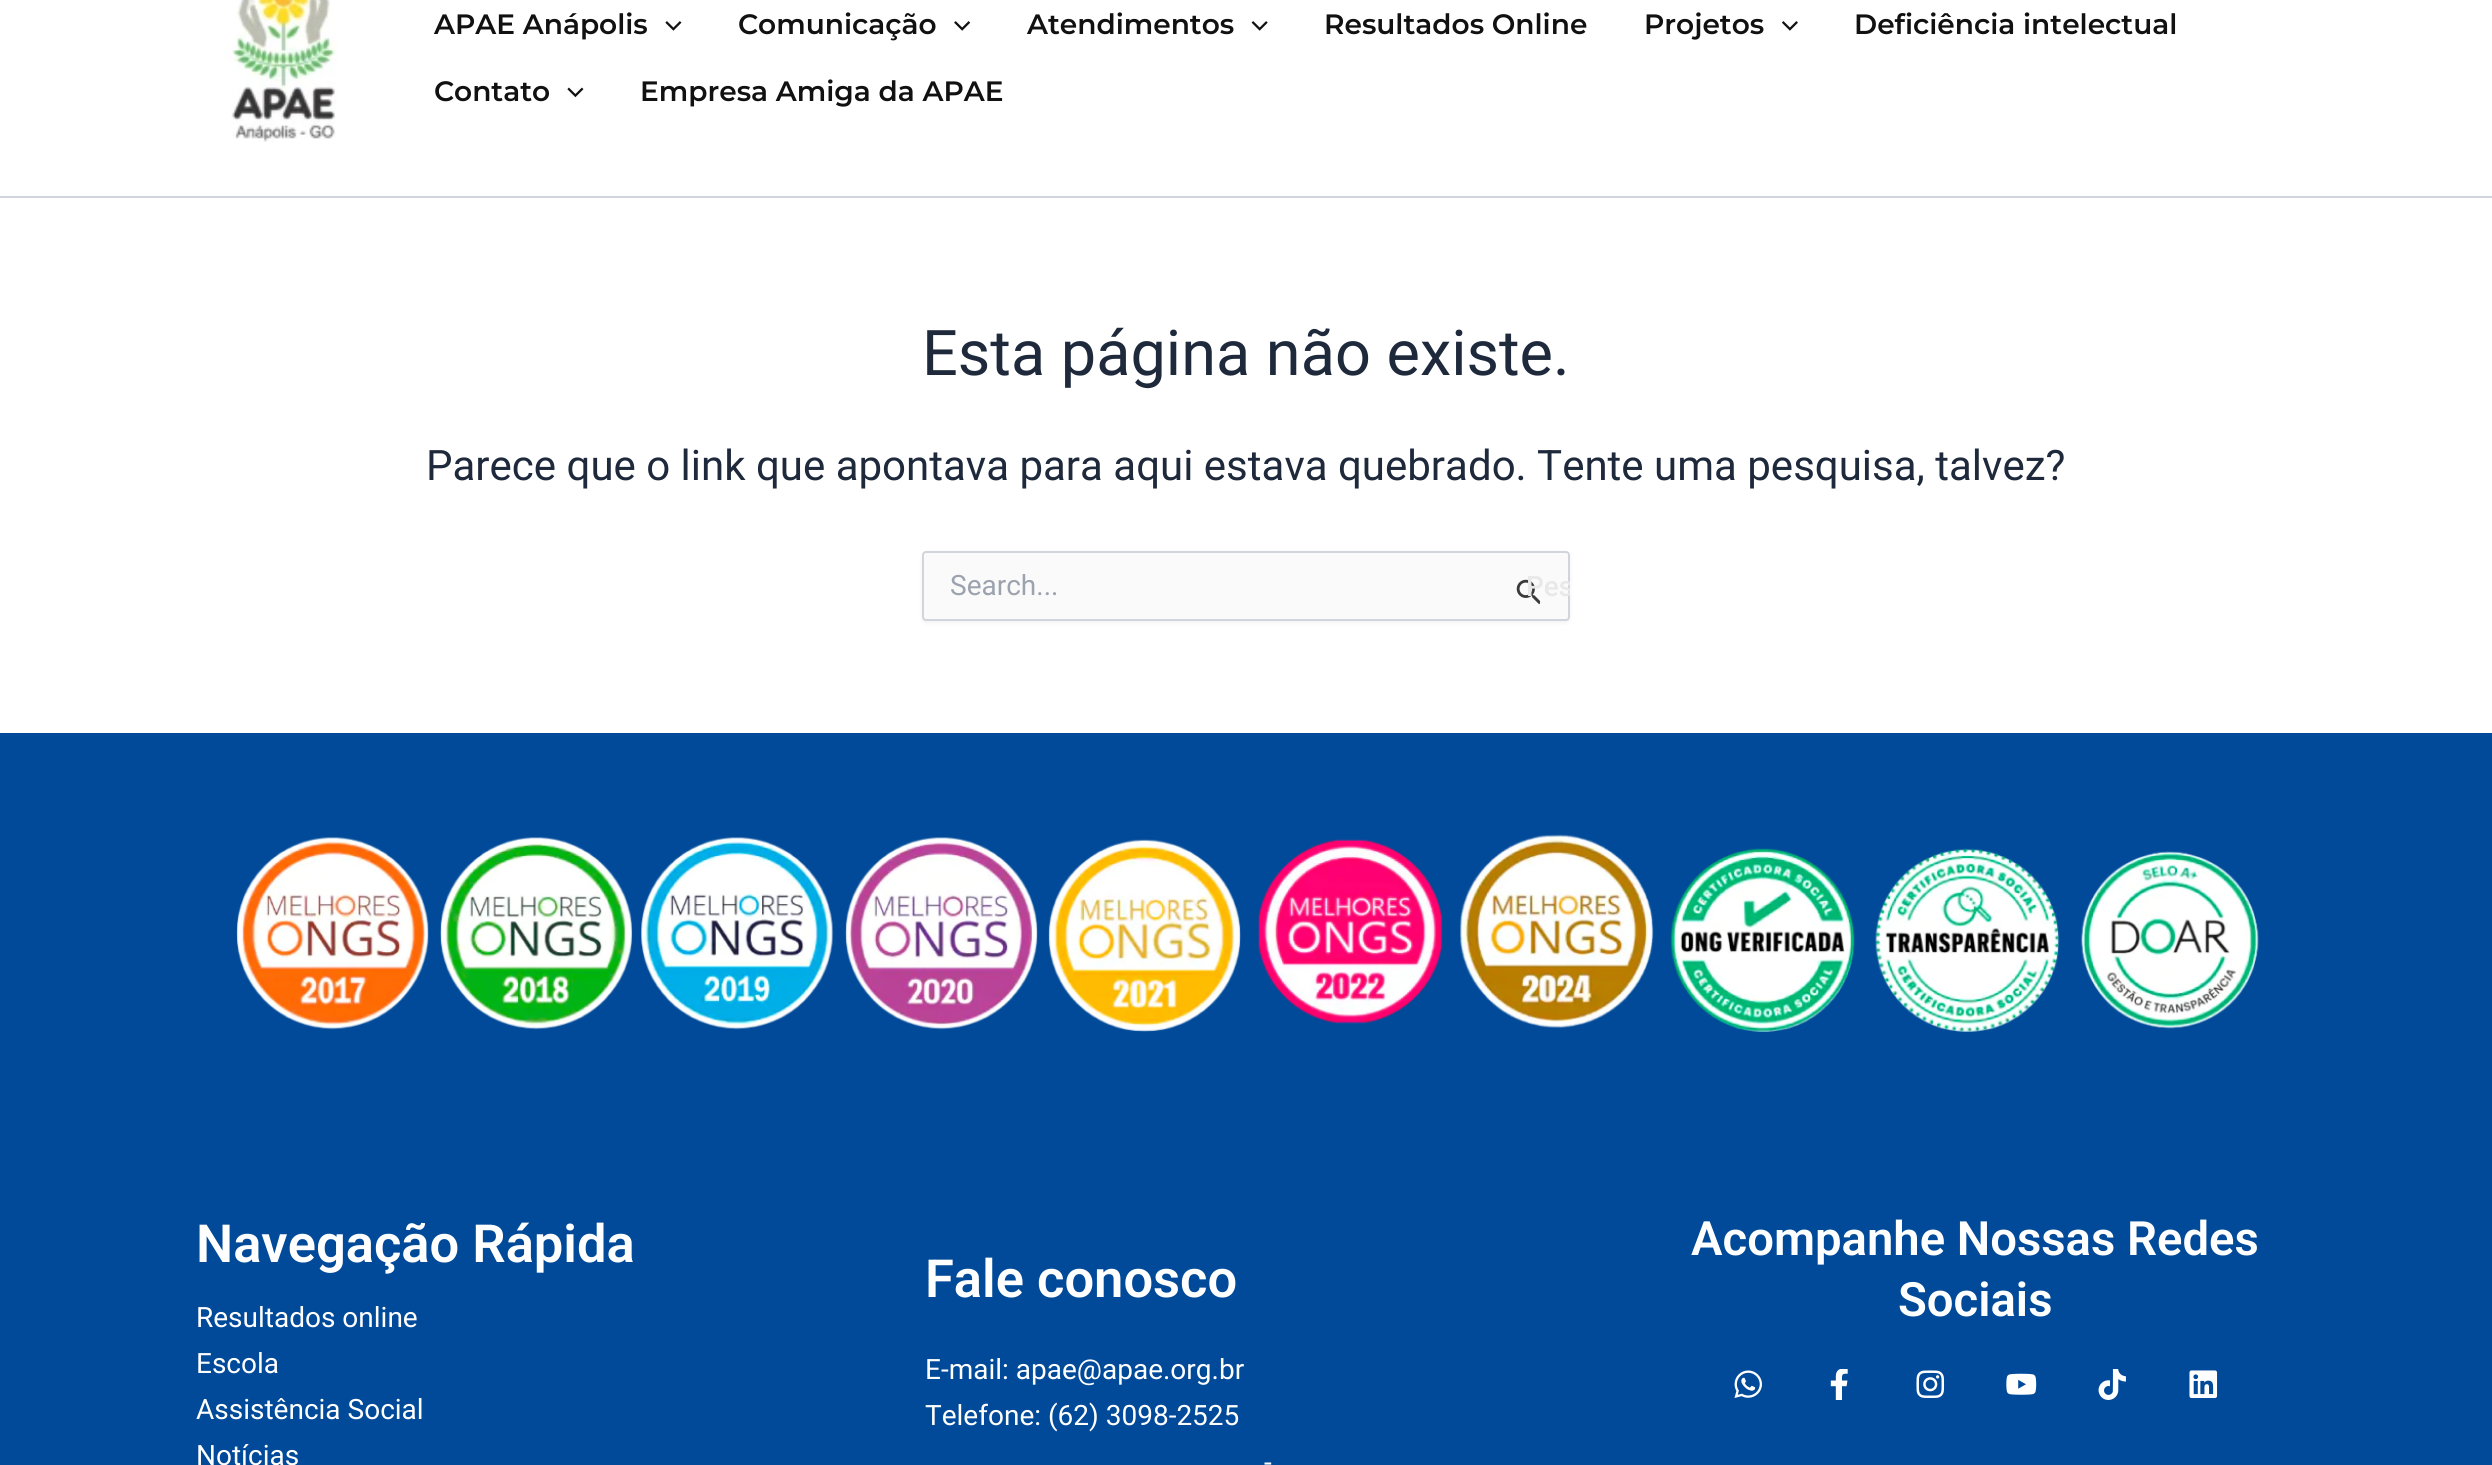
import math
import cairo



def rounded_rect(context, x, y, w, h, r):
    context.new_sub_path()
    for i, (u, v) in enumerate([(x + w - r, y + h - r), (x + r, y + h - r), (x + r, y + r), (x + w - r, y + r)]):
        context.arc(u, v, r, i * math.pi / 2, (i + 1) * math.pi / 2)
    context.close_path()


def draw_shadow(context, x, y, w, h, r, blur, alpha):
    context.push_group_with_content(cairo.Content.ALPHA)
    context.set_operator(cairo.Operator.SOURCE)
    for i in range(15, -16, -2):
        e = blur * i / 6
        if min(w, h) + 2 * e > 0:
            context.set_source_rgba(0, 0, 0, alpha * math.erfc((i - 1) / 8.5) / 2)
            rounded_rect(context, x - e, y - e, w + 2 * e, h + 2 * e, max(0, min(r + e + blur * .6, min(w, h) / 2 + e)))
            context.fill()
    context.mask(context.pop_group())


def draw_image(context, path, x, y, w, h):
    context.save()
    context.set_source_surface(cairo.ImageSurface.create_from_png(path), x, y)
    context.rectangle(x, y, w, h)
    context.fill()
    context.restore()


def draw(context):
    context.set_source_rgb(1, 1, 1)
    context.paint()
    context.set_source_rgb(209 / 255, 213 / 255, 219 / 255)
    context.rectangle(0, 196, 2492, 2)
    context.fill()
    draw_image(context, "images/1.png", 224, 0, 113, 142)
    draw_image(context, "images/2.png", 665, 21, 17, 10)
    draw_image(context, "images/3.png", 954, 21, 17, 10)
    draw_image(context, "images/4.png", 1251, 21, 17, 10)
    draw_image(context, "images/5.png", 1782, 21, 16, 10)
    draw_image(context, "images/6.png", 567, 87, 17, 11)
    context.set_source_rgb(0, 0, 0)
    draw_shadow(context, 922, 553, 648, 70, 4, 2, 0.05)
    context.set_source_rgb(250 / 255, 250 / 255, 250 / 255)
    rounded_rect(context, 923, 552, 646, 68, 3)
    context.fill_preserve()
    context.set_source_rgb(209 / 255, 213 / 255, 219 / 255)
    context.stroke()
    draw_image(context, "images/7.png", 1516, 579, 24, 26)
    context.set_source_rgb(1 / 255, 74 / 255, 153 / 255)
    context.rectangle(0, 733, 2492, 732)
    context.fill()
    draw_image(context, "images/8.png", 236, 834, 2023, 198)
    draw_image(context, "images/9.png", 1734, 1370, 28, 28)
    draw_image(context, "images/10.png", 1830, 1369, 18, 31)
    draw_image(context, "images/11.png", 1916, 1370, 29, 28)
    draw_image(context, "images/12.png", 2006, 1373, 31, 22)
    draw_image(context, "images/13.png", 2098, 1369, 28, 31)
    draw_image(context, "images/14.png", 2189, 1370, 29, 28)
    context.select_font_face("Montserrat Thin")
    context.set_font_size(28)
    context.set_source_rgb(17 / 255, 17 / 255, 17 / 255)
    context.move_to(434, 34)
    context.show_text("APAE Anápolis")
    context.move_to(738, 34)
    context.show_text("Comunicação")
    context.move_to(1027, 34)
    context.show_text("Atendimentos")
    context.move_to(1324, 34)
    context.show_text("Resultados Online")
    context.move_to(1644, 34)
    context.show_text("Projetos")
    context.move_to(1854, 34)
    context.show_text("Deficiência intelectual")
    context.move_to(434, 101)
    context.show_text("Contato")
    context.move_to(640, 101)
    context.show_text("Empresa Amiga da APAE")
    context.select_font_face("Roboto")
    context.set_font_size(63)
    context.set_source_rgb(30 / 255, 41 / 255, 59 / 255)
    context.move_to(922, 375)
    context.show_text("Esta página não existe.")
    context.set_font_size(42)
    context.move_to(426, 480)
    context.show_text("Parece que o link que apontava para aqui estava quebrado. Tente uma pesquisa, talvez?")
    context.set_font_size(28)
    context.set_source_rgb(156 / 255, 163 / 255, 175 / 255)
    context.move_to(950, 595)
    context.show_text("Search...")
    context.save()
    rounded_rect(context, 1491, 551, 79, 74, 4)
    context.clip()
    context.select_font_face("Roboto Medium")
    context.set_source_rgb(232 / 255, 232 / 255, 233 / 255)
    context.move_to(1526, 596)
    context.show_text("Pes")
    context.restore()
    context.select_font_face("Roboto SemiBold")
    context.set_font_size(52.5)
    context.set_source_rgb(1, 1, 1)
    context.move_to(196, 1262)
    context.show_text("Navegação Rápida")
    context.select_font_face("Roboto")
    context.set_font_size(28)
    context.move_to(196, 1327)
    context.show_text("Resultados online")
    context.move_to(196, 1373)
    context.show_text("Escola")
    context.move_to(196, 1419)
    context.show_text("Assistência Social")
    context.move_to(196, 1465)
    context.show_text("Notícias")
    context.select_font_face("Roboto SemiBold")
    context.set_font_size(52.5)
    context.move_to(925, 1297)
    context.show_text("Fale conosco")
    context.select_font_face("Roboto")
    context.set_font_size(28)
    context.move_to(925, 1379)
    context.show_text("E-mail: apae@apae.org.br")
    context.move_to(925, 1425)
    context.show_text("Telefone: (62) 3098-2525")
    context.move_to(1264, 1472)
    context.show_text("-")
    context.select_font_face("Roboto SemiBold")
    context.set_font_size(47.25)
    context.move_to(1691, 1255)
    context.show_text("Acompanhe Nossas Redes")
    context.move_to(1898, 1316)
    context.show_text("Sociais")


surface = cairo.ImageSurface(cairo.Format.RGB24, 2492, 1465)
context = cairo.Context(surface)
options = cairo.FontOptions()
options.set_hint_metrics(cairo.HintMetrics.OFF)
options.set_hint_style(cairo.HintStyle.NONE)
context.set_font_options(options)
context.set_miter_limit(4)
draw(context)
surface.write_to_png("out.png")
